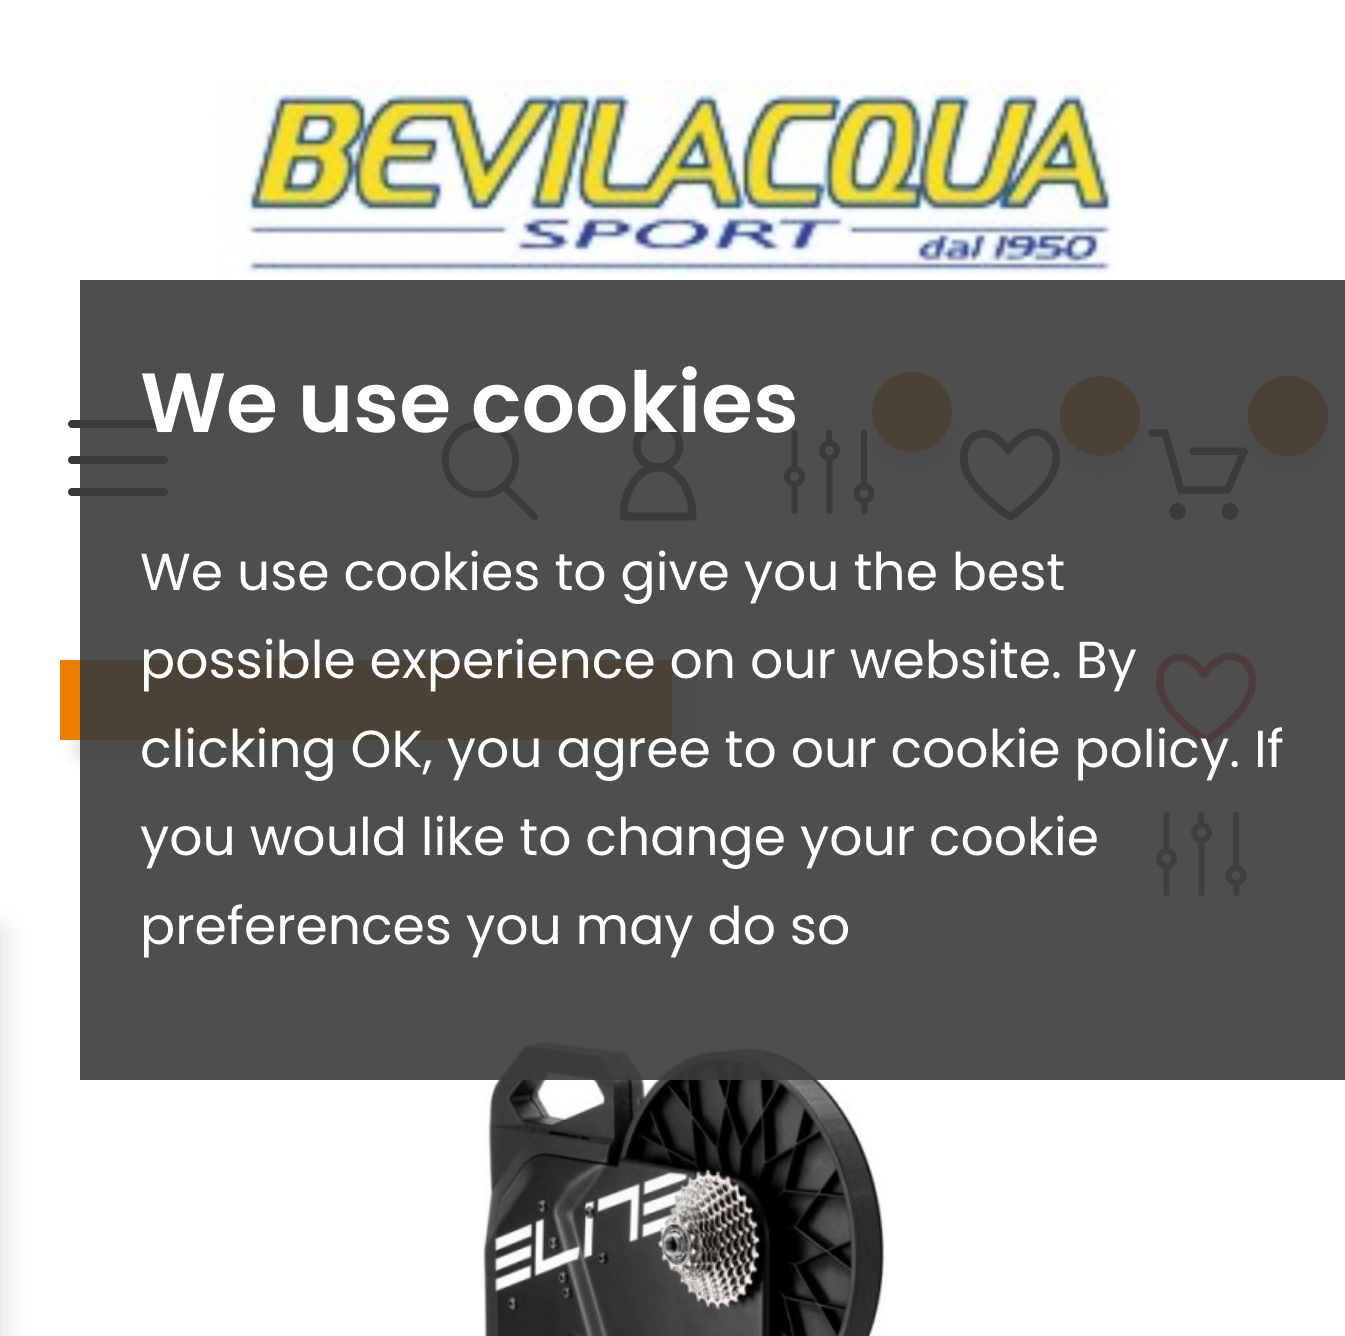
import math
import cairo



def rounded_rect(context, x, y, w, h, r):
    context.new_sub_path()
    for i, (u, v) in enumerate([(x + w - r, y + h - r), (x + r, y + h - r), (x + r, y + r), (x + w - r, y + r)]):
        context.arc(u, v, r, i * math.pi / 2, (i + 1) * math.pi / 2)
    context.close_path()


def draw_shadow(context, x, y, w, h, r, blur, alpha):
    context.push_group_with_content(cairo.Content.ALPHA)
    context.set_operator(cairo.Operator.SOURCE)
    for i in range(15, -16, -2):
        e = blur * i / 6
        if min(w, h) + 2 * e > 0:
            context.set_source_rgba(0, 0, 0, alpha * math.erfc((i - 1) / 8.5) / 2)
            rounded_rect(context, x - e, y - e, w + 2 * e, h + 2 * e, max(0, min(r + e + blur * .6, min(w, h) / 2 + e)))
            context.fill()
    context.mask(context.pop_group())


def draw_image(context, path, x, y, w, h):
    context.save()
    context.set_source_surface(cairo.ImageSurface.create_from_png(path), x, y)
    context.rectangle(x, y, w, h)
    context.fill()
    context.restore()


def draw(context):
    context.set_source_rgb(1, 1, 1)
    context.paint()
    draw_image(context, "images/1.png", 216, 80, 899, 195)
    context.set_source_rgb(58 / 255, 58 / 255, 58 / 255)
    rounded_rect(context, 68, 420, 100, 8, 4)
    context.fill()
    rounded_rect(context, 68, 456, 100, 8, 4)
    context.fill()
    rounded_rect(context, 68, 488, 100, 8, 4)
    context.fill()
    context.new_path()
    context.move_to(509, 486)
    context.curve_to(516, 479, 519, 469, 519, 459)
    context.curve_to(519, 441, 506, 425, 488, 421)
    context.curve_to(477, 419, 465, 422, 456, 429)
    context.curve_to(428, 453, 444, 498, 480, 498)
    context.curve_to(489, 498, 497, 496, 504, 491)
    context.line_to(528, 515)
    context.curve_to(529, 516, 533, 522, 536, 520)
    context.curve_to(542, 518, 534, 511, 533, 510)
    context.close_path()
    context.move_to(458, 482)
    context.curve_to(437, 461, 454, 425, 484, 428)
    context.curve_to(491, 428, 498, 432, 503, 437)
    context.curve_to(508, 442, 511, 449, 512, 456)
    context.curve_to(515, 486, 479, 503, 458, 482)
    context.close_path()
    context.fill()
    draw_image(context, "images/2.png", 619, 420, 78, 101)
    context.new_path()
    context.move_to(794.5, 432.5)
    context.line_to(794.5, 467)
    context.set_line_width(6.1)
    context.set_line_cap(cairo.LineCap.ROUND)
    context.stroke()
    context.new_path()
    context.move_to(829, 432.5)
    context.line_to(829, 441.5)
    context.stroke()
    context.new_path()
    context.move_to(864, 432.5)
    context.line_to(864, 485.5)
    context.stroke()
    context.new_path()
    context.move_to(864.5, 503)
    context.line_to(864.5, 511)
    context.stroke()
    context.arc(864, 493.5, 7.5, 0, 2 * math.pi)
    context.set_line_cap(cairo.LineCap.BUTT)
    context.stroke()
    draw_image(context, "images/3.png", 959, 428, 102, 93)
    context.set_source_rgb(0, 0, 0)
    draw_shadow(context, 872, 388, 80, 80, 40, 8, 0.14)
    context.set_source_rgb(234 / 255, 127 / 255, 0)
    context.arc(912, 412, 40, 0, 2 * math.pi)
    context.fill()
    context.new_path()
    context.move_to(829.5, 459)
    context.line_to(829.5, 511)
    context.set_source_rgb(58 / 255, 58 / 255, 58 / 255)
    context.set_line_cap(cairo.LineCap.ROUND)
    context.stroke()
    context.arc(829.5, 450.5, 7.5, 0, 2 * math.pi)
    context.set_line_cap(cairo.LineCap.BUTT)
    context.stroke()
    context.new_path()
    context.move_to(794.5, 486)
    context.line_to(794.5, 511)
    context.set_line_cap(cairo.LineCap.ROUND)
    context.stroke()
    context.arc(794.5, 476.5, 7.5, 0, 2 * math.pi)
    context.set_line_cap(cairo.LineCap.BUTT)
    context.stroke()
    draw_image(context, "images/4.png", 1148, 429, 100, 91)
    context.set_source_rgb(0, 0, 0)
    draw_shadow(context, 1060, 392, 80, 80, 40, 8, 0.14)
    context.set_source_rgb(234 / 255, 127 / 255, 0)
    context.arc(1100, 416, 40, 0, 2 * math.pi)
    context.fill()
    context.set_source_rgb(0, 0, 0)
    draw_shadow(context, 1248, 392, 80, 80, 40, 8, 0.14)
    context.set_source_rgb(234 / 255, 127 / 255, 0)
    context.arc(1288, 416, 40, 0, 2 * math.pi)
    context.fill()
    context.set_source_rgb(0, 0, 0)
    draw_shadow(context, -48, 932, 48, 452, 0, 16, 0.16)
    draw_shadow(context, 76, 676, 612, 80, 0, 8, 0.14)
    context.set_source_rgb(234 / 255, 127 / 255, 0)
    context.rectangle(60, 660, 612, 80)
    context.fill()
    draw_image(context, "images/5.png", 1155, 652, 102, 93)
    context.new_path()
    context.move_to(1166.5, 814.5)
    context.line_to(1166.5, 849)
    context.set_source_rgb(104 / 255, 104 / 255, 104 / 255)
    context.set_line_cap(cairo.LineCap.ROUND)
    context.stroke()
    context.new_path()
    context.move_to(1166.5, 868)
    context.line_to(1166.5, 893)
    context.stroke()
    context.arc(1166.5, 858.5, 7.5, 0, 2 * math.pi)
    context.set_line_cap(cairo.LineCap.BUTT)
    context.stroke()
    context.new_path()
    context.move_to(1201, 814.5)
    context.line_to(1201, 823.5)
    context.set_line_cap(cairo.LineCap.ROUND)
    context.stroke()
    context.new_path()
    context.move_to(1201.5, 841)
    context.line_to(1201.5, 893)
    context.stroke()
    context.arc(1201.5, 832.5, 7.5, 0, 2 * math.pi)
    context.set_line_cap(cairo.LineCap.BUTT)
    context.stroke()
    context.new_path()
    context.move_to(1236, 814.5)
    context.line_to(1236, 867.5)
    context.set_line_cap(cairo.LineCap.ROUND)
    context.stroke()
    context.new_path()
    context.move_to(1236.5, 885)
    context.line_to(1236.5, 893)
    context.stroke()
    context.arc(1236, 875.5, 7.5, 0, 2 * math.pi)
    context.set_line_cap(cairo.LineCap.BUTT)
    context.stroke()
    draw_image(context, "images/6.png", 482, 1041, 404, 295)
    context.set_source_rgba(59 / 255, 59 / 255, 59 / 255, 0.9)
    context.rectangle(80, 280, 1265, 800)
    context.fill()
    context.select_font_face("Poppins SemiBold")
    context.set_font_size(84)
    context.set_source_rgb(1, 1, 1)
    context.move_to(140, 432)
    context.show_text("We use cookies")
    context.select_font_face("Poppins")
    context.set_font_size(52)
    context.move_to(140, 590)
    context.show_text("We use cookies to give you the best")
    context.move_to(140, 678)
    context.show_text("possible experience on our website. By")
    context.move_to(140, 767)
    context.show_text("clicking OK, you agree to our cookie policy. If")
    context.move_to(140, 855)
    context.show_text("you would like to change your cookie")
    context.move_to(140, 944)
    context.show_text("preferences you may do so")


surface = cairo.ImageSurface(cairo.Format.RGB24, 1345, 1336)
context = cairo.Context(surface)
options = cairo.FontOptions()
options.set_hint_metrics(cairo.HintMetrics.OFF)
options.set_hint_style(cairo.HintStyle.NONE)
context.set_font_options(options)
context.set_miter_limit(4)
draw(context)
surface.write_to_png("out.png")
